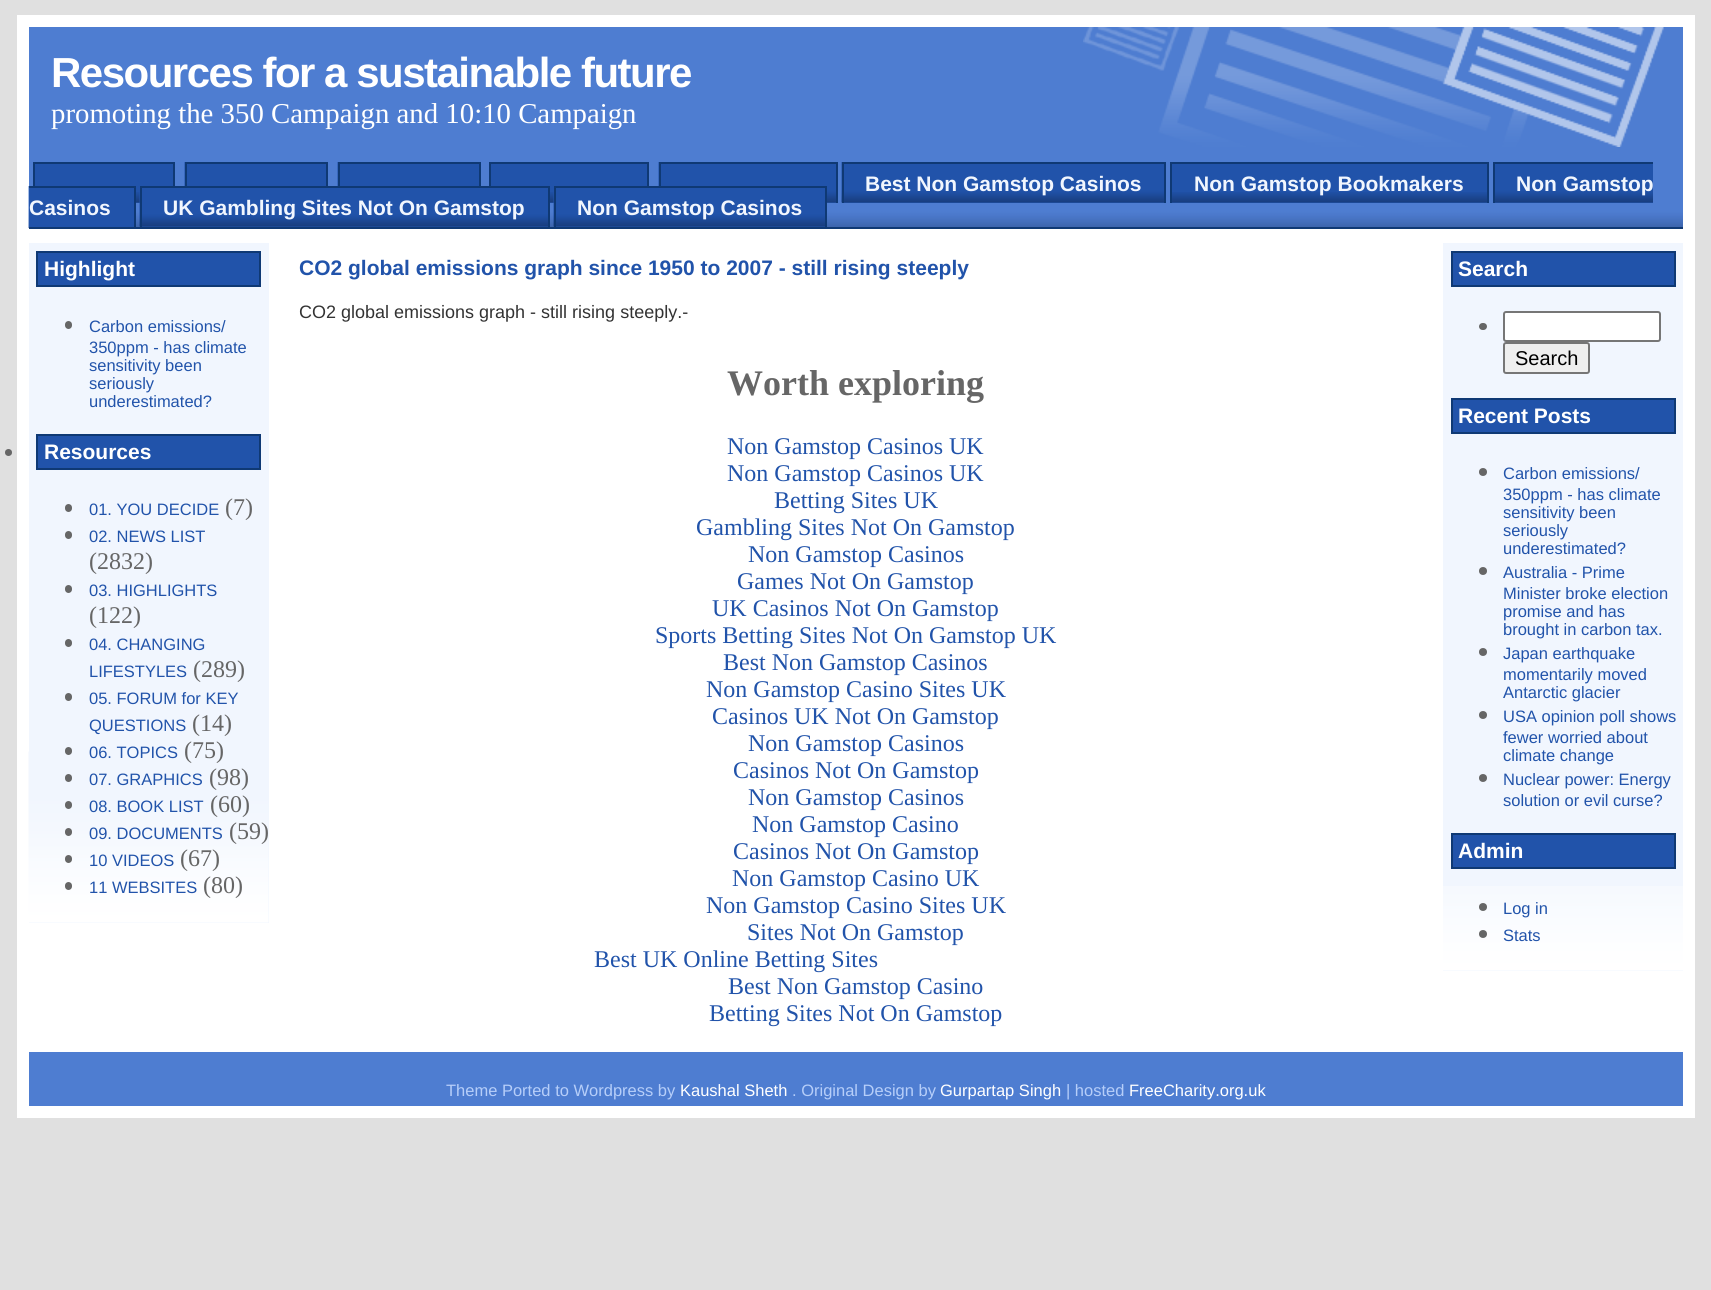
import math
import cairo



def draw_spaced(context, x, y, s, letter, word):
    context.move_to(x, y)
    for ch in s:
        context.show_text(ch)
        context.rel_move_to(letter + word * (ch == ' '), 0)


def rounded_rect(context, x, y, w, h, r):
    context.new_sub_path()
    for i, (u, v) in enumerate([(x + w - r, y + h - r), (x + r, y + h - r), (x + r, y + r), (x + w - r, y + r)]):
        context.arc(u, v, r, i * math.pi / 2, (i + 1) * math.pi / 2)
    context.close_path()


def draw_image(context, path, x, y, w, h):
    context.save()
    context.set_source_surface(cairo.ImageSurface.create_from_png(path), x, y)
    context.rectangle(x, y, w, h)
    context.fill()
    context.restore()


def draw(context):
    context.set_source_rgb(224 / 255, 224 / 255, 224 / 255)
    context.paint()
    context.set_source_rgb(1, 1, 1)
    context.rectangle(17, 15, 1678, 1103)
    context.fill()
    context.set_source_rgb(78 / 255, 125 / 255, 209 / 255)
    context.rectangle(29, 27, 1654, 159)
    context.fill()
    draw_image(context, "images/1.png", 28, 186, 1655, 42)
    draw_image(context, "images/2.png", 1083, 27, 581, 120)
    context.set_source_rgb(15 / 255, 57 / 255, 116 / 255)
    context.rectangle(29, 227, 1654, 2)
    context.fill()
    context.rectangle(33, 162, 141, 2)
    context.fill()
    context.rectangle(33, 162, 2, 24)
    context.fill()
    context.rectangle(173, 162, 2, 24)
    context.fill()
    draw_image(context, "images/3.png", 184, 162, 142, 24)
    context.rectangle(185, 162, 142, 2)
    context.fill()
    context.rectangle(185, 162, 2, 24)
    context.fill()
    context.rectangle(326, 162, 2, 24)
    context.fill()
    draw_image(context, "images/3.png", 337, 162, 142, 24)
    context.rectangle(338, 162, 142, 2)
    context.fill()
    context.rectangle(338, 162, 2, 24)
    context.fill()
    context.rectangle(479, 162, 2, 24)
    context.fill()
    context.rectangle(489, 162, 159, 2)
    context.fill()
    context.rectangle(489, 162, 2, 24)
    context.fill()
    context.rectangle(647, 162, 2, 24)
    context.fill()
    context.set_source_rgb(33 / 255, 83 / 255, 170 / 255)
    context.rectangle(827, 202, 9, 1)
    context.fill()
    draw_image(context, "images/4.png", 658, 162, 178, 41)
    context.set_source_rgb(15 / 255, 57 / 255, 116 / 255)
    context.rectangle(659, 162, 178, 2)
    context.fill()
    context.set_source_rgb(33 / 255, 83 / 255, 170 / 255)
    context.rectangle(35, 164, 138, 39)
    context.fill()
    context.rectangle(491, 164, 156, 39)
    context.fill()
    context.set_source_rgb(15 / 255, 57 / 255, 116 / 255)
    context.rectangle(659, 162, 2, 24)
    context.fill()
    context.rectangle(836, 162, 2, 41)
    context.fill()
    context.set_source_rgb(33 / 255, 83 / 255, 170 / 255)
    context.rectangle(844, 202, 320, 1)
    context.fill()
    draw_image(context, "images/5.png", 841, 162, 323, 41)
    draw_image(context, "images/8.png", 136, 192, 4, 11)
    context.rectangle(142, 226, 406, 1)
    context.fill()
    draw_image(context, "images/6.png", 139, 186, 409, 41)
    draw_image(context, "images/8.png", 550, 192, 4, 11)
    context.rectangle(556, 226, 269, 1)
    context.fill()
    draw_image(context, "images/7.png", 553, 186, 272, 41)
    context.set_source_rgb(15 / 255, 57 / 255, 116 / 255)
    context.rectangle(842, 162, 324, 2)
    context.fill()
    context.rectangle(1164, 162, 2, 41)
    context.fill()
    context.rectangle(842, 162, 2, 41)
    context.fill()
    context.set_source_rgb(33 / 255, 83 / 255, 170 / 255)
    context.rectangle(1172, 164, 315, 39)
    context.fill()
    context.set_source_rgb(15 / 255, 57 / 255, 116 / 255)
    context.rectangle(1170, 162, 318, 2)
    context.fill()
    context.rectangle(1487, 162, 2, 41)
    context.fill()
    context.rectangle(1170, 162, 2, 41)
    context.fill()
    context.set_source_rgb(33 / 255, 83 / 255, 170 / 255)
    context.rectangle(1495, 164, 158, 39)
    context.fill()
    context.set_source_rgb(15 / 255, 57 / 255, 116 / 255)
    context.rectangle(1493, 162, 160, 2)
    context.fill()
    context.rectangle(1493, 162, 2, 41)
    context.fill()
    draw_image(context, "images/9.png", 1172, 192, 315, 11)
    draw_image(context, "images/10.png", 1495, 186, 158, 17)
    context.set_source_rgb(33 / 255, 83 / 255, 170 / 255)
    context.rectangle(29, 188, 105, 39)
    context.fill()
    context.set_source_rgb(15 / 255, 57 / 255, 116 / 255)
    context.rectangle(29, 186, 106, 2)
    context.fill()
    context.rectangle(134, 186, 2, 41)
    context.fill()
    context.rectangle(140, 186, 409, 2)
    context.fill()
    context.rectangle(548, 186, 2, 41)
    context.fill()
    context.rectangle(140, 186, 2, 41)
    context.fill()
    context.rectangle(554, 186, 273, 2)
    context.fill()
    context.rectangle(825, 186, 2, 41)
    context.fill()
    context.rectangle(554, 186, 2, 41)
    context.fill()
    context.set_source_rgb(241 / 255, 246 / 255, 254 / 255)
    context.rectangle(29, 243, 240, 680)
    context.fill()
    draw_image(context, "images/11.png", 28, 751, 241, 172)
    context.set_source_rgb(33 / 255, 83 / 255, 170 / 255)
    context.rectangle(37, 252, 223, 34)
    context.fill_preserve()
    context.set_source_rgb(15 / 255, 57 / 255, 116 / 255)
    context.stroke()
    context.set_source_rgb(102 / 255, 102 / 255, 102 / 255)
    rounded_rect(context, 65, 321, 7, 8, 3.5)
    context.fill()
    context.arc(8.5, 452.5, 3.5, 0, 2 * math.pi)
    context.fill()
    context.set_source_rgb(33 / 255, 83 / 255, 170 / 255)
    context.rectangle(37, 435, 223, 34)
    context.fill_preserve()
    context.set_source_rgb(15 / 255, 57 / 255, 116 / 255)
    context.stroke()
    context.set_source_rgb(102 / 255, 102 / 255, 102 / 255)
    rounded_rect(context, 65, 504, 7, 8, 3.5)
    context.fill()
    rounded_rect(context, 65, 531, 7, 8, 3.5)
    context.fill()
    rounded_rect(context, 65, 585, 7, 8, 3.5)
    context.fill()
    rounded_rect(context, 65, 639, 7, 8, 3.5)
    context.fill()
    rounded_rect(context, 65, 693, 7, 8, 3.5)
    context.fill()
    rounded_rect(context, 65, 747, 7, 8, 3.5)
    context.fill()
    rounded_rect(context, 65, 774, 7, 8, 3.5)
    context.fill()
    rounded_rect(context, 65, 801, 7, 8, 3.5)
    context.fill()
    rounded_rect(context, 65, 828, 7, 8, 3.5)
    context.fill()
    rounded_rect(context, 65, 855, 7, 8, 3.5)
    context.fill()
    rounded_rect(context, 65, 882, 7, 8, 3.5)
    context.fill()
    context.set_source_rgb(241 / 255, 246 / 255, 254 / 255)
    context.rectangle(1443, 243, 240, 728)
    context.fill()
    draw_image(context, "images/12.png", 1443, 886, 240, 85)
    context.set_source_rgb(33 / 255, 83 / 255, 170 / 255)
    context.rectangle(1452, 252, 223, 34)
    context.fill_preserve()
    context.set_source_rgb(15 / 255, 57 / 255, 116 / 255)
    context.stroke()
    context.set_source_rgb(102 / 255, 102 / 255, 102 / 255)
    rounded_rect(context, 1479, 323, 8, 7, 3.5)
    context.fill()
    context.set_source_rgb(1, 1, 1)
    rounded_rect(context, 1504, 312, 156, 29, 2)
    context.fill_preserve()
    context.set_source_rgb(118 / 255, 118 / 255, 118 / 255)
    context.stroke()
    context.set_source_rgb(239 / 255, 239 / 255, 239 / 255)
    rounded_rect(context, 1504, 343, 85, 30, 2)
    context.fill_preserve()
    context.set_source_rgb(118 / 255, 118 / 255, 118 / 255)
    context.stroke()
    context.set_source_rgb(33 / 255, 83 / 255, 170 / 255)
    context.rectangle(1452, 399, 223, 34)
    context.fill_preserve()
    context.set_source_rgb(15 / 255, 57 / 255, 116 / 255)
    context.stroke()
    context.set_source_rgb(102 / 255, 102 / 255, 102 / 255)
    context.arc(1483, 472, 4, 0, 2 * math.pi)
    context.fill()
    context.arc(1483, 571, 4, 0, 2 * math.pi)
    context.fill()
    context.arc(1483, 652, 4, 0, 2 * math.pi)
    context.fill()
    context.arc(1483, 715, 4, 0, 2 * math.pi)
    context.fill()
    context.arc(1483, 778, 4, 0, 2 * math.pi)
    context.fill()
    context.set_source_rgb(33 / 255, 83 / 255, 170 / 255)
    context.rectangle(1452, 834, 223, 34)
    context.fill_preserve()
    context.set_source_rgb(15 / 255, 57 / 255, 116 / 255)
    context.stroke()
    context.set_source_rgb(102 / 255, 102 / 255, 102 / 255)
    context.arc(1483, 907, 4, 0, 2 * math.pi)
    context.fill()
    context.arc(1483, 934, 4, 0, 2 * math.pi)
    context.fill()
    context.set_source_rgb(78 / 255, 125 / 255, 209 / 255)
    context.rectangle(29, 1052, 1654, 54)
    context.fill()
    context.select_font_face("Liberation Sans", cairo.FontSlant.NORMAL, cairo.FontWeight.BOLD)
    context.set_font_size(42)
    context.set_source_rgb(1, 1, 1)
    draw_spaced(context, 51, 87, "Resources for a sustainable future", -1.5, 0)
    context.select_font_face("Liberation Serif")
    context.set_font_size(28.8)
    context.move_to(51, 123)
    context.show_text("promoting the 350 Campaign and 10:10 Campaign")
    context.select_font_face("Liberation Sans", cairo.FontSlant.NORMAL, cairo.FontWeight.BOLD)
    context.set_font_size(21)
    context.set_source_rgb(241 / 255, 246 / 255, 254 / 255)
    context.move_to(865, 191)
    context.show_text("Best Non Gamstop Casinos")
    context.move_to(1194, 191)
    context.show_text("Non Gamstop Bookmakers")
    context.move_to(1516, 191)
    context.show_text("Non Gamstop")
    context.move_to(29, 215)
    context.show_text("Casinos")
    context.move_to(163, 215)
    context.show_text("UK Gambling Sites Not On Gamstop")
    context.move_to(577, 215)
    context.show_text("Non Gamstop Casinos")
    context.set_source_rgb(1, 1, 1)
    context.move_to(44, 276)
    context.show_text("Highlight")
    context.select_font_face("Liberation Sans")
    context.set_font_size(16.5)
    context.set_source_rgb(33 / 255, 83 / 255, 170 / 255)
    context.move_to(89, 332)
    context.show_text("Carbon emissions/")
    context.move_to(89, 353)
    context.show_text("350ppm - has climate")
    context.move_to(89, 371)
    context.show_text("sensitivity been")
    context.move_to(89, 389)
    context.show_text("seriously")
    context.move_to(89, 407)
    context.show_text("underestimated?")
    context.select_font_face("Liberation Sans", cairo.FontSlant.NORMAL, cairo.FontWeight.BOLD)
    context.set_font_size(21)
    context.set_source_rgb(1, 1, 1)
    context.move_to(44, 459)
    context.show_text("Resources")
    context.select_font_face("Liberation Sans")
    context.set_font_size(16.5)
    context.set_source_rgb(33 / 255, 83 / 255, 170 / 255)
    context.move_to(89, 515)
    context.show_text("01. YOU DECIDE")
    context.select_font_face("Liberation Serif")
    context.set_font_size(24)
    context.set_source_rgb(102 / 255, 102 / 255, 102 / 255)
    context.move_to(225, 515)
    context.show_text("(7)")
    context.select_font_face("Liberation Sans")
    context.set_font_size(16.5)
    context.set_source_rgb(33 / 255, 83 / 255, 170 / 255)
    context.move_to(89, 542)
    context.show_text("02. NEWS LIST")
    context.select_font_face("Liberation Serif")
    context.set_font_size(24)
    context.set_source_rgb(102 / 255, 102 / 255, 102 / 255)
    context.move_to(89, 569)
    context.show_text("(2832)")
    context.select_font_face("Liberation Sans")
    context.set_font_size(16.5)
    context.set_source_rgb(33 / 255, 83 / 255, 170 / 255)
    context.move_to(89, 596)
    context.show_text("03. HIGHLIGHTS")
    context.select_font_face("Liberation Serif")
    context.set_font_size(24)
    context.set_source_rgb(102 / 255, 102 / 255, 102 / 255)
    context.move_to(89, 623)
    context.show_text("(122)")
    context.select_font_face("Liberation Sans")
    context.set_font_size(16.5)
    context.set_source_rgb(33 / 255, 83 / 255, 170 / 255)
    context.move_to(89, 650)
    context.show_text("04. CHANGING")
    context.move_to(89, 677)
    context.show_text("LIFESTYLES")
    context.select_font_face("Liberation Serif")
    context.set_font_size(24)
    context.set_source_rgb(102 / 255, 102 / 255, 102 / 255)
    context.move_to(193, 677)
    context.show_text("(289)")
    context.select_font_face("Liberation Sans")
    context.set_font_size(16.5)
    context.set_source_rgb(33 / 255, 83 / 255, 170 / 255)
    context.move_to(89, 704)
    context.show_text("05. FORUM for KEY")
    context.move_to(89, 731)
    context.show_text("QUESTIONS")
    context.select_font_face("Liberation Serif")
    context.set_font_size(24)
    context.set_source_rgb(102 / 255, 102 / 255, 102 / 255)
    context.move_to(192, 731)
    context.show_text("(14)")
    context.select_font_face("Liberation Sans")
    context.set_font_size(16.5)
    context.set_source_rgb(33 / 255, 83 / 255, 170 / 255)
    context.move_to(89, 758)
    context.show_text("06. TOPICS")
    context.select_font_face("Liberation Serif")
    context.set_font_size(24)
    context.set_source_rgb(102 / 255, 102 / 255, 102 / 255)
    context.move_to(184, 758)
    context.show_text("(75)")
    context.select_font_face("Liberation Sans")
    context.set_font_size(16.5)
    context.set_source_rgb(33 / 255, 83 / 255, 170 / 255)
    context.move_to(89, 785)
    context.show_text("07. GRAPHICS")
    context.select_font_face("Liberation Serif")
    context.set_font_size(24)
    context.set_source_rgb(102 / 255, 102 / 255, 102 / 255)
    context.move_to(209, 785)
    context.show_text("(98)")
    context.select_font_face("Liberation Sans")
    context.set_font_size(16.5)
    context.set_source_rgb(33 / 255, 83 / 255, 170 / 255)
    context.move_to(89, 812)
    context.show_text("08. BOOK LIST")
    context.select_font_face("Liberation Serif")
    context.set_font_size(24)
    context.set_source_rgb(102 / 255, 102 / 255, 102 / 255)
    context.move_to(210, 812)
    context.show_text("(60)")
    context.select_font_face("Liberation Sans")
    context.set_font_size(16.5)
    context.set_source_rgb(33 / 255, 83 / 255, 170 / 255)
    context.move_to(89, 839)
    context.show_text("09. DOCUMENTS")
    context.select_font_face("Liberation Serif")
    context.set_font_size(24)
    context.set_source_rgb(102 / 255, 102 / 255, 102 / 255)
    context.move_to(229, 839)
    context.show_text("(59)")
    context.select_font_face("Liberation Sans")
    context.set_font_size(16.5)
    context.set_source_rgb(33 / 255, 83 / 255, 170 / 255)
    context.move_to(89, 866)
    context.show_text("10 VIDEOS")
    context.select_font_face("Liberation Serif")
    context.set_font_size(24)
    context.set_source_rgb(102 / 255, 102 / 255, 102 / 255)
    context.move_to(180, 866)
    context.show_text("(67)")
    context.select_font_face("Liberation Sans")
    context.set_font_size(16.5)
    context.set_source_rgb(33 / 255, 83 / 255, 170 / 255)
    context.move_to(89, 893)
    context.show_text("11 WEBSITES")
    context.select_font_face("Liberation Serif")
    context.set_font_size(24)
    context.set_source_rgb(102 / 255, 102 / 255, 102 / 255)
    context.move_to(203, 893)
    context.show_text("(80)")
    context.select_font_face("Liberation Sans", cairo.FontSlant.NORMAL, cairo.FontWeight.BOLD)
    context.set_font_size(21)
    context.set_source_rgb(33 / 255, 83 / 255, 170 / 255)
    context.move_to(299, 275)
    context.show_text("CO2 global emissions graph since 1950 to 2007 - still rising steeply")
    context.select_font_face("Liberation Sans")
    context.set_font_size(18)
    context.set_source_rgb(51 / 255, 51 / 255, 51 / 255)
    context.move_to(299, 318)
    context.show_text("CO2 global emissions graph - still rising steeply.-")
    context.select_font_face("Liberation Sans", cairo.FontSlant.NORMAL, cairo.FontWeight.BOLD)
    context.set_font_size(21)
    context.set_source_rgb(1, 1, 1)
    context.move_to(1458, 276)
    context.show_text("Search")
    context.select_font_face("Liberation Sans")
    context.set_font_size(20)
    context.set_source_rgb(0, 0, 0)
    context.move_to(1515, 365)
    context.show_text("Search")
    context.select_font_face("Liberation Sans", cairo.FontSlant.NORMAL, cairo.FontWeight.BOLD)
    context.set_font_size(21)
    context.set_source_rgb(1, 1, 1)
    context.move_to(1458, 423)
    context.show_text("Recent Posts")
    context.select_font_face("Liberation Sans")
    context.set_font_size(16.5)
    context.set_source_rgb(33 / 255, 83 / 255, 170 / 255)
    context.move_to(1503, 479)
    context.show_text("Carbon emissions/")
    context.move_to(1503, 500)
    context.show_text("350ppm - has climate")
    context.move_to(1503, 518)
    context.show_text("sensitivity been")
    context.move_to(1503, 536)
    context.show_text("seriously")
    context.move_to(1503, 554)
    context.show_text("underestimated?")
    context.move_to(1503, 578)
    context.show_text("Australia - Prime")
    context.move_to(1503, 599)
    context.show_text("Minister broke election")
    context.move_to(1503, 617)
    context.show_text("promise and has")
    context.move_to(1503, 635)
    context.show_text("brought in carbon tax.")
    context.move_to(1503, 659)
    context.show_text("Japan earthquake")
    context.move_to(1503, 680)
    context.show_text("momentarily moved")
    context.move_to(1503, 698)
    context.show_text("Antarctic glacier")
    context.move_to(1503, 722)
    context.show_text("USA opinion poll shows")
    context.move_to(1503, 743)
    context.show_text("fewer worried about")
    context.move_to(1503, 761)
    context.show_text("climate change")
    context.move_to(1503, 785)
    context.show_text("Nuclear power: Energy")
    context.move_to(1503, 806)
    context.show_text("solution or evil curse?")
    context.select_font_face("Liberation Sans", cairo.FontSlant.NORMAL, cairo.FontWeight.BOLD)
    context.set_font_size(21)
    context.set_source_rgb(1, 1, 1)
    context.move_to(1458, 858)
    context.show_text("Admin")
    context.select_font_face("Liberation Sans")
    context.set_font_size(16.5)
    context.set_source_rgb(33 / 255, 83 / 255, 170 / 255)
    context.move_to(1503, 914)
    context.show_text("Log in")
    context.move_to(1503, 941)
    context.show_text("Stats")
    context.select_font_face("Liberation Serif", cairo.FontSlant.NORMAL, cairo.FontWeight.BOLD)
    context.set_font_size(36)
    context.set_source_rgb(102 / 255, 102 / 255, 102 / 255)
    context.move_to(727, 395)
    context.show_text("Worth exploring")
    context.select_font_face("Liberation Serif")
    context.set_font_size(24)
    context.set_source_rgb(33 / 255, 83 / 255, 170 / 255)
    context.move_to(727, 454)
    context.show_text("Non Gamstop Casinos UK")
    context.move_to(727, 481)
    context.show_text("Non Gamstop Casinos UK")
    context.move_to(774, 508)
    context.show_text("Betting Sites UK")
    context.move_to(696, 535)
    context.show_text("Gambling Sites Not On Gamstop")
    context.move_to(748, 562)
    context.show_text("Non Gamstop Casinos")
    context.move_to(737, 589)
    context.show_text("Games Not On Gamstop")
    context.move_to(712, 616)
    context.show_text("UK Casinos Not On Gamstop")
    context.move_to(655, 643)
    context.show_text("Sports Betting Sites Not On Gamstop UK")
    context.move_to(723, 670)
    context.show_text("Best Non Gamstop Casinos")
    context.move_to(706, 697)
    context.show_text("Non Gamstop Casino Sites UK")
    context.move_to(712, 724)
    context.show_text("Casinos UK Not On Gamstop")
    context.move_to(748, 751)
    context.show_text("Non Gamstop Casinos")
    context.move_to(733, 778)
    context.show_text("Casinos Not On Gamstop")
    context.move_to(748, 805)
    context.show_text("Non Gamstop Casinos")
    context.move_to(752, 832)
    context.show_text("Non Gamstop Casino")
    context.move_to(733, 859)
    context.show_text("Casinos Not On Gamstop")
    context.move_to(732, 886)
    context.show_text("Non Gamstop Casino UK")
    context.move_to(706, 913)
    context.show_text("Non Gamstop Casino Sites UK")
    context.move_to(747, 940)
    context.show_text("Sites Not On Gamstop")
    context.move_to(594, 967)
    context.show_text("Best UK Online Betting Sites")
    context.move_to(728, 994)
    context.show_text("Best Non Gamstop Casino")
    context.move_to(709, 1021)
    context.show_text("Betting Sites Not On Gamstop")
    context.select_font_face("Liberation Sans")
    context.set_font_size(16.5)
    context.set_source_rgb(182 / 255, 206 / 255, 249 / 255)
    context.move_to(446, 1096)
    context.show_text("Theme Ported to Wordpress by")
    context.set_source_rgb(1, 1, 1)
    context.move_to(680, 1096)
    context.show_text("Kaushal Sheth")
    context.set_source_rgb(182 / 255, 206 / 255, 249 / 255)
    context.move_to(792, 1096)
    context.show_text(". Original Design by")
    context.set_source_rgb(1, 1, 1)
    context.move_to(940, 1096)
    context.show_text("Gurpartap Singh")
    context.set_source_rgb(182 / 255, 206 / 255, 249 / 255)
    context.move_to(1066, 1096)
    context.show_text("| hosted")
    context.set_source_rgb(1, 1, 1)
    context.move_to(1129, 1096)
    context.show_text("FreeCharity.org.uk")


surface = cairo.ImageSurface(cairo.Format.RGB24, 1711, 1290)
context = cairo.Context(surface)
options = cairo.FontOptions()
options.set_hint_metrics(cairo.HintMetrics.OFF)
options.set_hint_style(cairo.HintStyle.NONE)
context.set_font_options(options)
context.set_miter_limit(4)
draw(context)
surface.write_to_png("out.png")
